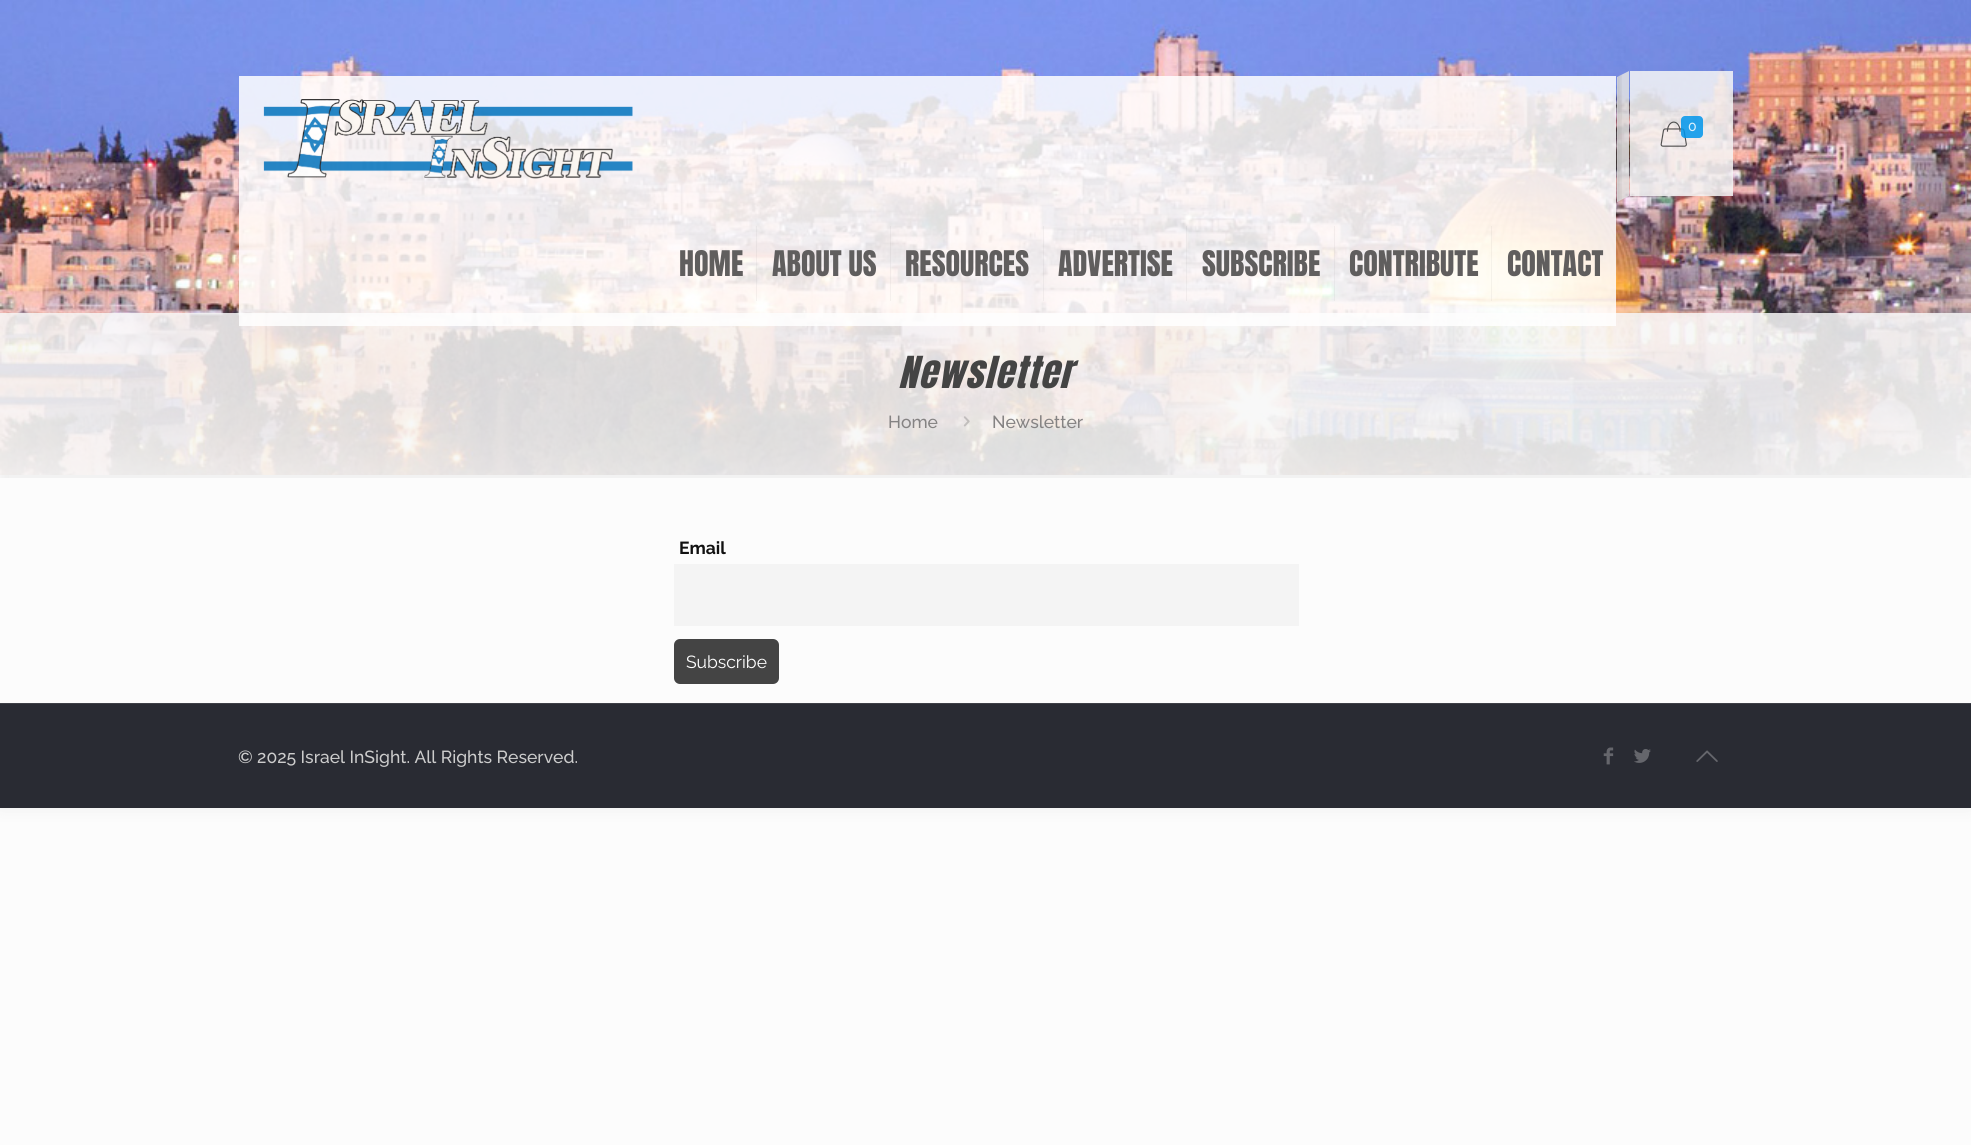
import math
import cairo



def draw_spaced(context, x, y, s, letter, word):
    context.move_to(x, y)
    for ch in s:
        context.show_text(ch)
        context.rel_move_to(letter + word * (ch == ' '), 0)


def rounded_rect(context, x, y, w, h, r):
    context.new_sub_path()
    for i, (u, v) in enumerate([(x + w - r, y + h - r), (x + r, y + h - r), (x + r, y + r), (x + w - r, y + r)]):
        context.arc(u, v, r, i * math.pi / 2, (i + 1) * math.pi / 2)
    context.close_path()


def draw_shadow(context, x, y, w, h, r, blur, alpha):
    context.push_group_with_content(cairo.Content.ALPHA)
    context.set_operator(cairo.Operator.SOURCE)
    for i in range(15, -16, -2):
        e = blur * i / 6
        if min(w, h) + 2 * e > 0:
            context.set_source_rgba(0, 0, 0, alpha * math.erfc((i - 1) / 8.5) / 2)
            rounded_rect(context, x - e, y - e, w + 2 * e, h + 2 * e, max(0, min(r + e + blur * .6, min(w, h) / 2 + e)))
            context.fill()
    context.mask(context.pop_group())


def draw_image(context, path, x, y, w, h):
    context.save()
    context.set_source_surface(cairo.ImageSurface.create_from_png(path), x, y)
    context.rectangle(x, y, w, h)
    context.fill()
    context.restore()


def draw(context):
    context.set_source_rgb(252 / 255, 252 / 255, 252 / 255)
    context.paint()
    context.set_source_rgb(0, 0, 0)
    draw_shadow(context, 0, 0, 1971, 808, 0, 9.5, 0.06)
    context.set_source_rgb(252 / 255, 252 / 255, 252 / 255)
    context.rectangle(0, 478, 1971, 225)
    context.fill()
    draw_image(context, "images/1.png", 0, 0, 1971, 475)
    context.set_source_rgba(245 / 255, 245 / 255, 245 / 255, 0.85)
    context.rectangle(1630, 71, 103, 125)
    context.fill()
    context.set_source_rgba(227 / 255, 227 / 255, 227 / 255, 0.85)
    context.new_path()
    context.move_to(1617, 77)
    context.line_to(1629, 71)
    context.line_to(1629, 196)
    context.line_to(1617, 202)
    context.close_path()
    context.fill()
    draw_image(context, "images/2.png", 1617, 75, 5, 126)
    draw_image(context, "images/3.png", 1660, 121, 27, 26)
    context.set_source_rgba(0, 149 / 255, 235 / 255, 0.85)
    rounded_rect(context, 1681, 116, 22, 22, 4)
    context.fill()
    context.set_source_rgba(247 / 255, 247 / 255, 247 / 255, 0.85)
    context.rectangle(0, 313, 1971, 162)
    context.fill()
    context.set_source_rgba(1, 1, 1, 0.85)
    context.rectangle(239, 76, 1377, 250)
    context.fill()
    draw_image(context, "images/4.png", 263, 99, 370, 80)
    context.set_source_rgba(0, 0, 0, 0.04)
    context.rectangle(756, 226, 1, 75)
    context.fill()
    context.rectangle(890, 226, 1, 75)
    context.fill()
    context.rectangle(1043, 226, 1, 75)
    context.fill()
    context.rectangle(1186, 226, 1, 75)
    context.fill()
    context.rectangle(1334, 226, 1, 75)
    context.fill()
    context.rectangle(1491, 226, 1, 75)
    context.fill()
    draw_image(context, "images/5.png", 963, 416, 7, 11)
    context.set_source_rgb(242 / 255, 242 / 255, 242 / 255)
    context.rectangle(9, 475, 1953, 3)
    context.fill()
    context.set_source_rgb(244 / 255, 244 / 255, 244 / 255)
    context.rectangle(674, 564, 625, 62)
    context.fill()
    context.set_source_rgb(68 / 255, 68 / 255, 68 / 255)
    rounded_rect(context, 674, 639, 105, 45, 6)
    context.fill()
    context.set_source_rgb(41 / 255, 43 / 255, 51 / 255)
    context.rectangle(0, 704, 1971, 104)
    context.fill()
    context.set_source_rgb(62 / 255, 64 / 255, 71 / 255)
    context.rectangle(0, 703, 1971, 1)
    context.fill()
    draw_image(context, "images/6.png", 1603, 747, 11, 18)
    draw_image(context, "images/7.png", 1634, 749, 17, 14)
    draw_image(context, "images/8.png", 1696, 750, 22, 12)
    context.select_font_face("Raleway Medium")
    context.set_font_size(14)
    context.set_source_rgb(222 / 255, 241 / 255, 252 / 255)
    context.move_to(1688, 131)
    context.show_text("0")
    context.select_font_face("Anton")
    context.set_font_size(30)
    context.set_source_rgb(96 / 255, 94 / 255, 94 / 255)
    context.move_to(679, 276)
    context.show_text("HOME")
    context.move_to(772, 276)
    context.show_text("ABOUT US")
    context.move_to(905, 276)
    context.show_text("RESOURCES")
    context.move_to(1058, 276)
    context.show_text("ADVERTISE")
    context.move_to(1202, 276)
    context.show_text("SUBSCRIBE")
    context.move_to(1349, 276)
    context.show_text("CONTRIBUTE")
    context.move_to(1507, 276)
    context.show_text("CONTACT")
    context.select_font_face("Anton", cairo.FontSlant.ITALIC)
    context.set_font_size(37.5)
    context.set_source_rgb(68 / 255, 68 / 255, 68 / 255)
    draw_spaced(context, 898, 388, "Newsletter", 1.25, 0)
    context.select_font_face("Raleway Medium")
    context.set_font_size(17.5)
    context.set_source_rgb(133 / 255, 131 / 255, 131 / 255)
    context.move_to(888, 428)
    context.show_text("Home")
    context.move_to(992, 428)
    context.show_text("Newsletter")
    context.select_font_face("Raleway", cairo.FontSlant.NORMAL, cairo.FontWeight.BOLD)
    context.set_source_rgb(17 / 255, 17 / 255, 17 / 255)
    context.move_to(679, 554)
    context.show_text("Email")
    context.select_font_face("Raleway")
    context.set_source_rgb(1, 1, 1)
    context.move_to(686, 668)
    context.show_text("Subscribe")
    context.select_font_face("Raleway Medium")
    context.set_source_rgb(204 / 255, 204 / 255, 204 / 255)
    context.move_to(238, 763)
    context.show_text("© 2025 Israel InSight. All Rights Reserved.")


surface = cairo.ImageSurface(cairo.Format.RGB24, 1971, 1145)
context = cairo.Context(surface)
options = cairo.FontOptions()
options.set_hint_metrics(cairo.HintMetrics.OFF)
options.set_hint_style(cairo.HintStyle.NONE)
context.set_font_options(options)
context.set_miter_limit(4)
draw(context)
surface.write_to_png("out.png")
